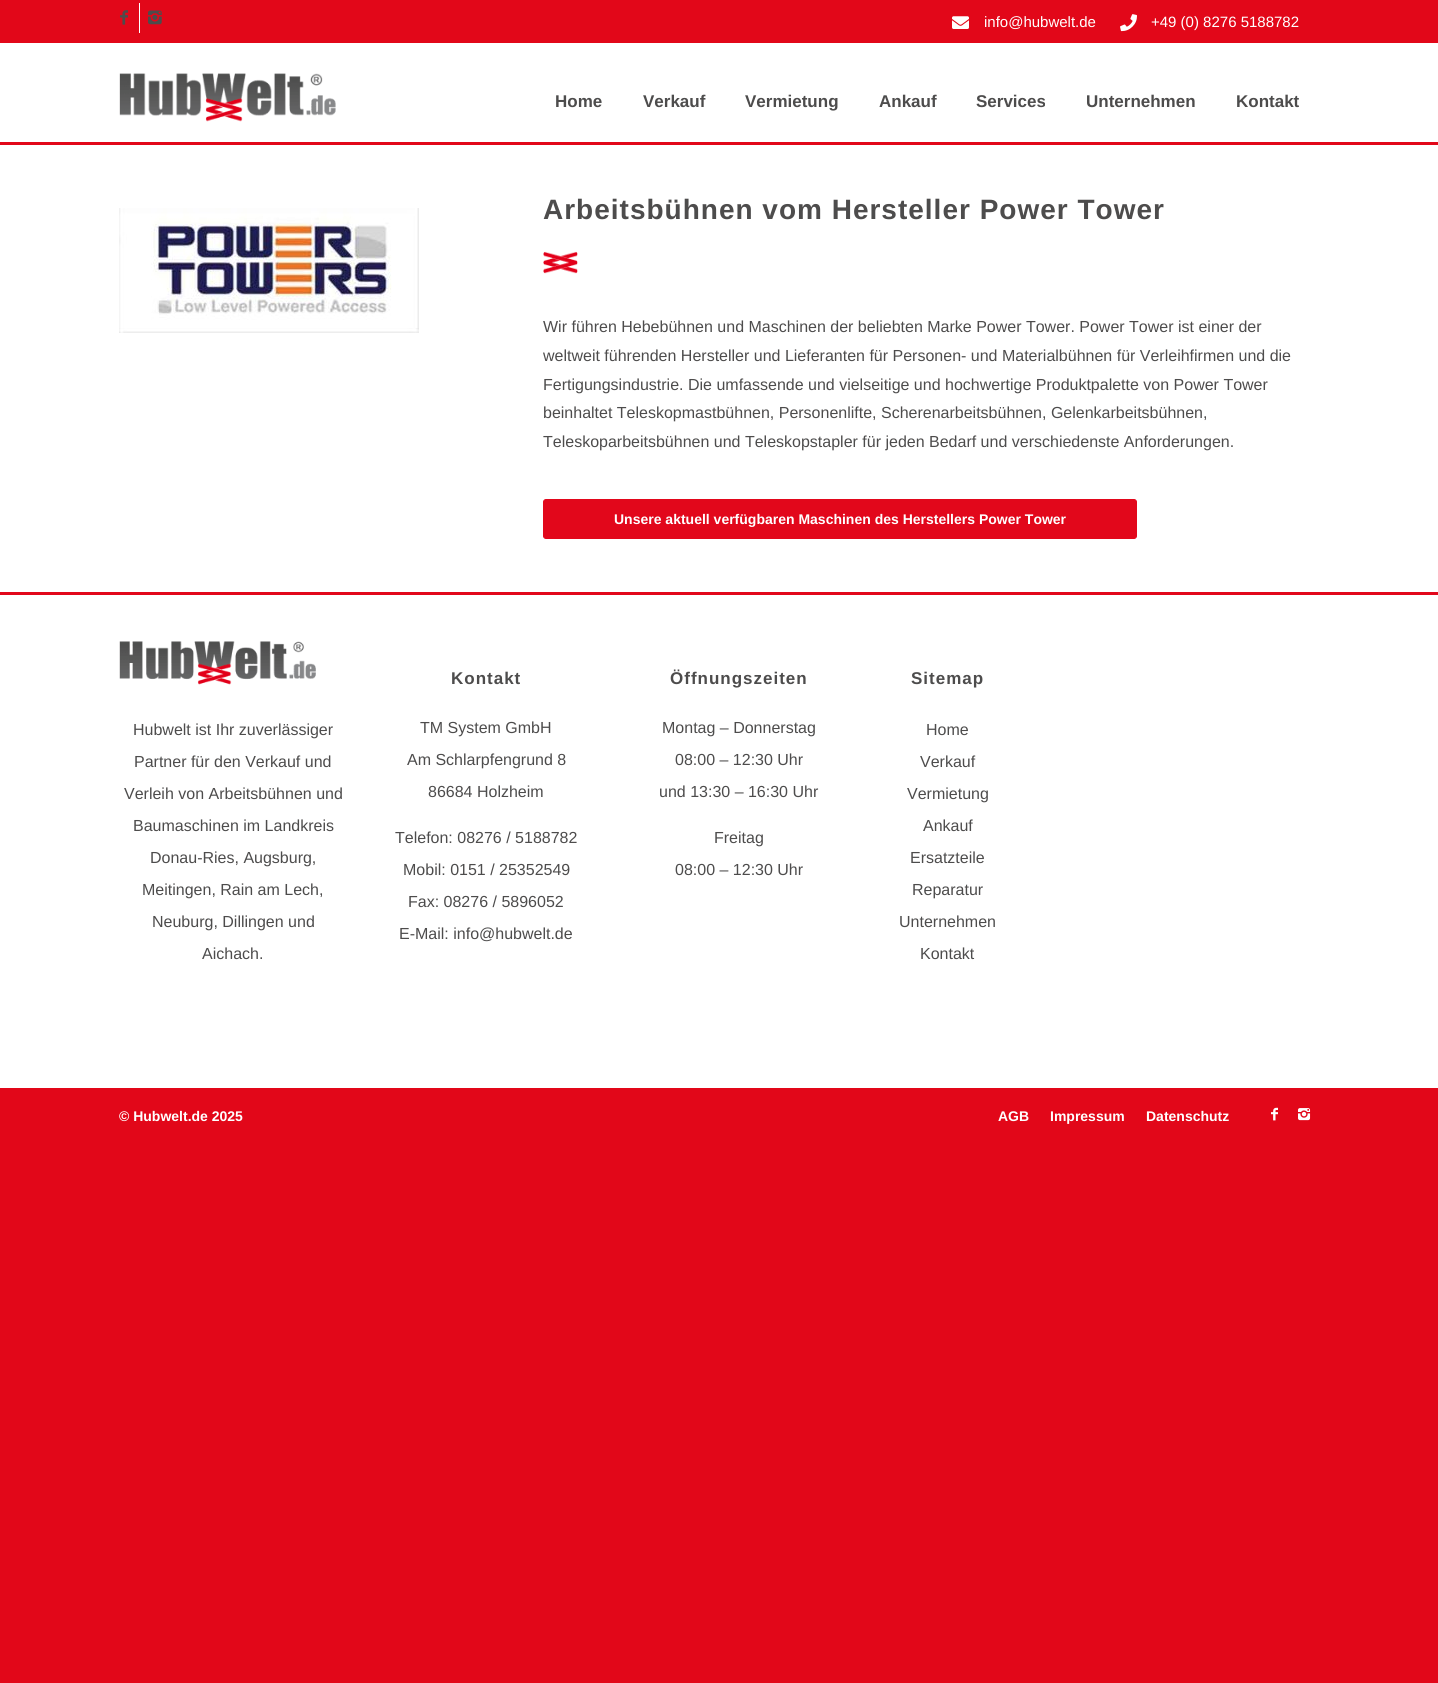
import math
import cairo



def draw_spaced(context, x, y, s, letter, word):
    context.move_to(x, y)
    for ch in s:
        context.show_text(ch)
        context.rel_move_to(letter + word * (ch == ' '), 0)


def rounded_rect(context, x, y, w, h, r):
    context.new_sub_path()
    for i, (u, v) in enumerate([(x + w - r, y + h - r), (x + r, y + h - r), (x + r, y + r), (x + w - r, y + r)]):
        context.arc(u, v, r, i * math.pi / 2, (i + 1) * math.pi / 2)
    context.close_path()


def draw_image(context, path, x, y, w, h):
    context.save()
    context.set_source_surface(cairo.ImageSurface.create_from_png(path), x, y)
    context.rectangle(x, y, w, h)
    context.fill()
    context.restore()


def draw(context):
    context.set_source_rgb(226 / 255, 7 / 255, 25 / 255)
    context.paint()
    context.set_source_rgb(1, 1, 1)
    context.rectangle(139, 3, 1, 30)
    context.fill()
    draw_image(context, "images/1.png", 120, 10, 8, 15)
    draw_image(context, "images/2.png", 148, 10, 14, 15)
    draw_image(context, "images/3.png", 952, 16, 17, 13)
    draw_image(context, "images/4.png", 1120, 14, 17, 18)
    context.rectangle(0, 43, 1438, 99)
    context.fill()
    draw_image(context, "images/5.png", 119, 73, 217, 49)
    context.rectangle(0, 145, 1438, 943)
    context.fill()
    draw_image(context, "images/6.png", 119, 208, 300, 125)
    draw_image(context, "images/7.png", 543, 251, 35, 23)
    context.set_source_rgb(226 / 255, 7 / 255, 27 / 255)
    rounded_rect(context, 543.5, 499.5, 593, 39, 2.5)
    context.fill_preserve()
    context.set_line_width(1)
    context.stroke()
    context.rectangle(0, 592, 1438, 3)
    context.fill()
    draw_image(context, "images/8.png", 119, 641, 197, 44)
    draw_image(context, "images/9.png", 1271, 1107, 7, 14)
    draw_image(context, "images/10.png", 1298, 1108, 13, 13)
    context.select_font_face("Liberation Sans")
    context.set_font_size(15)
    context.set_source_rgb(1, 1, 1)
    context.move_to(984, 27)
    context.show_text("info@hubwelt.de")
    context.move_to(1151, 27)
    context.show_text("+49 (0) 8276 5188782")
    context.select_font_face("Liberation Sans", cairo.FontSlant.NORMAL, cairo.FontWeight.BOLD)
    context.set_font_size(17)
    context.set_source_rgb(77 / 255, 76 / 255, 76 / 255)
    context.move_to(555, 107)
    context.show_text("Home")
    context.move_to(643, 107)
    context.show_text("Verkauf")
    context.move_to(745, 107)
    context.show_text("Vermietung")
    context.move_to(879, 107)
    context.show_text("Ankauf")
    context.move_to(976, 107)
    context.show_text("Services")
    context.move_to(1086, 107)
    context.show_text("Unternehmen")
    context.move_to(1236, 107)
    context.show_text("Kontakt")
    context.set_font_size(28)
    draw_spaced(context, 543, 219, "Arbeitsbühnen vom Hersteller Power Tower", 1, 0)
    context.select_font_face("Liberation Sans")
    context.set_font_size(16)
    context.move_to(543, 332)
    context.show_text("Wir führen Hebebühnen und Maschinen der beliebten Marke Power Tower. Power Tower ist einer der")
    context.move_to(543, 361)
    context.show_text("weltweit führenden Hersteller und Lieferanten für Personen- und Materialbühnen für Verleihfirmen und die")
    context.move_to(543, 390)
    context.show_text("Fertigungsindustrie. Die umfassende und vielseitige und hochwertige Produktpalette von Power Tower")
    context.move_to(543, 418)
    context.show_text("beinhaltet Teleskopmastbühnen, Personenlifte, Scherenarbeitsbühnen, Gelenkarbeitsbühnen,")
    context.move_to(543, 447)
    context.show_text("Teleskoparbeitsbühnen und Teleskopstapler für jeden Bedarf und verschiedenste Anforderungen.")
    context.select_font_face("Liberation Sans", cairo.FontSlant.NORMAL, cairo.FontWeight.BOLD)
    context.set_font_size(14)
    context.set_source_rgb(1, 1, 1)
    context.move_to(614, 524)
    context.show_text("Unsere aktuell verfügbaren Maschinen des Herstellers Power Tower")
    context.select_font_face("Liberation Sans")
    context.set_font_size(16)
    context.set_source_rgb(77 / 255, 76 / 255, 76 / 255)
    context.move_to(133, 735)
    context.show_text("Hubwelt ist Ihr zuverlässiger")
    context.move_to(134, 767)
    context.show_text("Partner für den Verkauf und")
    context.move_to(124, 799)
    context.show_text("Verleih von Arbeitsbühnen und")
    context.move_to(133, 831)
    context.show_text("Baumaschinen im Landkreis")
    context.move_to(150, 863)
    context.show_text("Donau-Ries, Augsburg,")
    context.move_to(142, 895)
    context.show_text("Meitingen, Rain am Lech,")
    context.move_to(152, 927)
    context.show_text("Neuburg, Dillingen und")
    context.move_to(202, 959)
    context.show_text("Aichach.")
    context.select_font_face("Liberation Sans", cairo.FontSlant.NORMAL, cairo.FontWeight.BOLD)
    context.set_font_size(17)
    draw_spaced(context, 451, 684, "Kontakt", 1, 0)
    context.select_font_face("Liberation Sans")
    context.set_font_size(16)
    context.move_to(420, 733)
    context.show_text("TM System GmbH")
    context.move_to(407, 765)
    context.show_text("Am Schlarpfengrund 8")
    context.move_to(428, 797)
    context.show_text("86684 Holzheim")
    context.move_to(395, 843)
    context.show_text("Telefon: 08276 / 5188782")
    context.move_to(403, 875)
    context.show_text("Mobil: 0151 / 25352549")
    context.move_to(408, 907)
    context.show_text("Fax: 08276 / 5896052")
    context.move_to(399, 939)
    context.show_text("E-Mail: info@hubwelt.de")
    context.select_font_face("Liberation Sans", cairo.FontSlant.NORMAL, cairo.FontWeight.BOLD)
    context.set_font_size(17)
    draw_spaced(context, 670, 684, "Öffnungszeiten", 1, 0)
    context.select_font_face("Liberation Sans")
    context.set_font_size(16)
    context.move_to(662, 733)
    context.show_text("Montag – Donnerstag")
    context.move_to(675, 765)
    context.show_text("08:00 – 12:30 Uhr")
    context.move_to(659, 797)
    context.show_text("und 13:30 – 16:30 Uhr")
    context.move_to(714, 843)
    context.show_text("Freitag")
    context.move_to(675, 875)
    context.show_text("08:00 – 12:30 Uhr")
    context.select_font_face("Liberation Sans", cairo.FontSlant.NORMAL, cairo.FontWeight.BOLD)
    context.set_font_size(17)
    draw_spaced(context, 911, 684, "Sitemap", 1, 0)
    context.select_font_face("Liberation Sans")
    context.set_font_size(16)
    context.move_to(926, 735)
    context.show_text("Home")
    context.move_to(920, 767)
    context.show_text("Verkauf")
    context.move_to(907, 799)
    context.show_text("Vermietung")
    context.move_to(923, 831)
    context.show_text("Ankauf")
    context.move_to(910, 863)
    context.show_text("Ersatzteile")
    context.move_to(912, 895)
    context.show_text("Reparatur")
    context.move_to(899, 927)
    context.show_text("Unternehmen")
    context.move_to(920, 959)
    context.show_text("Kontakt")
    context.select_font_face("Liberation Sans", cairo.FontSlant.NORMAL, cairo.FontWeight.BOLD)
    context.set_font_size(14)
    context.set_source_rgb(1, 1, 1)
    context.move_to(119, 1121)
    context.show_text("© Hubwelt.de 2025")
    context.move_to(998, 1121)
    context.show_text("AGB")
    context.move_to(1050, 1121)
    context.show_text("Impressum")
    context.move_to(1146, 1121)
    context.show_text("Datenschutz")


surface = cairo.ImageSurface(cairo.Format.RGB24, 1438, 1683)
context = cairo.Context(surface)
options = cairo.FontOptions()
options.set_hint_metrics(cairo.HintMetrics.OFF)
options.set_hint_style(cairo.HintStyle.NONE)
context.set_font_options(options)
context.set_miter_limit(4)
draw(context)
surface.write_to_png("out.png")
